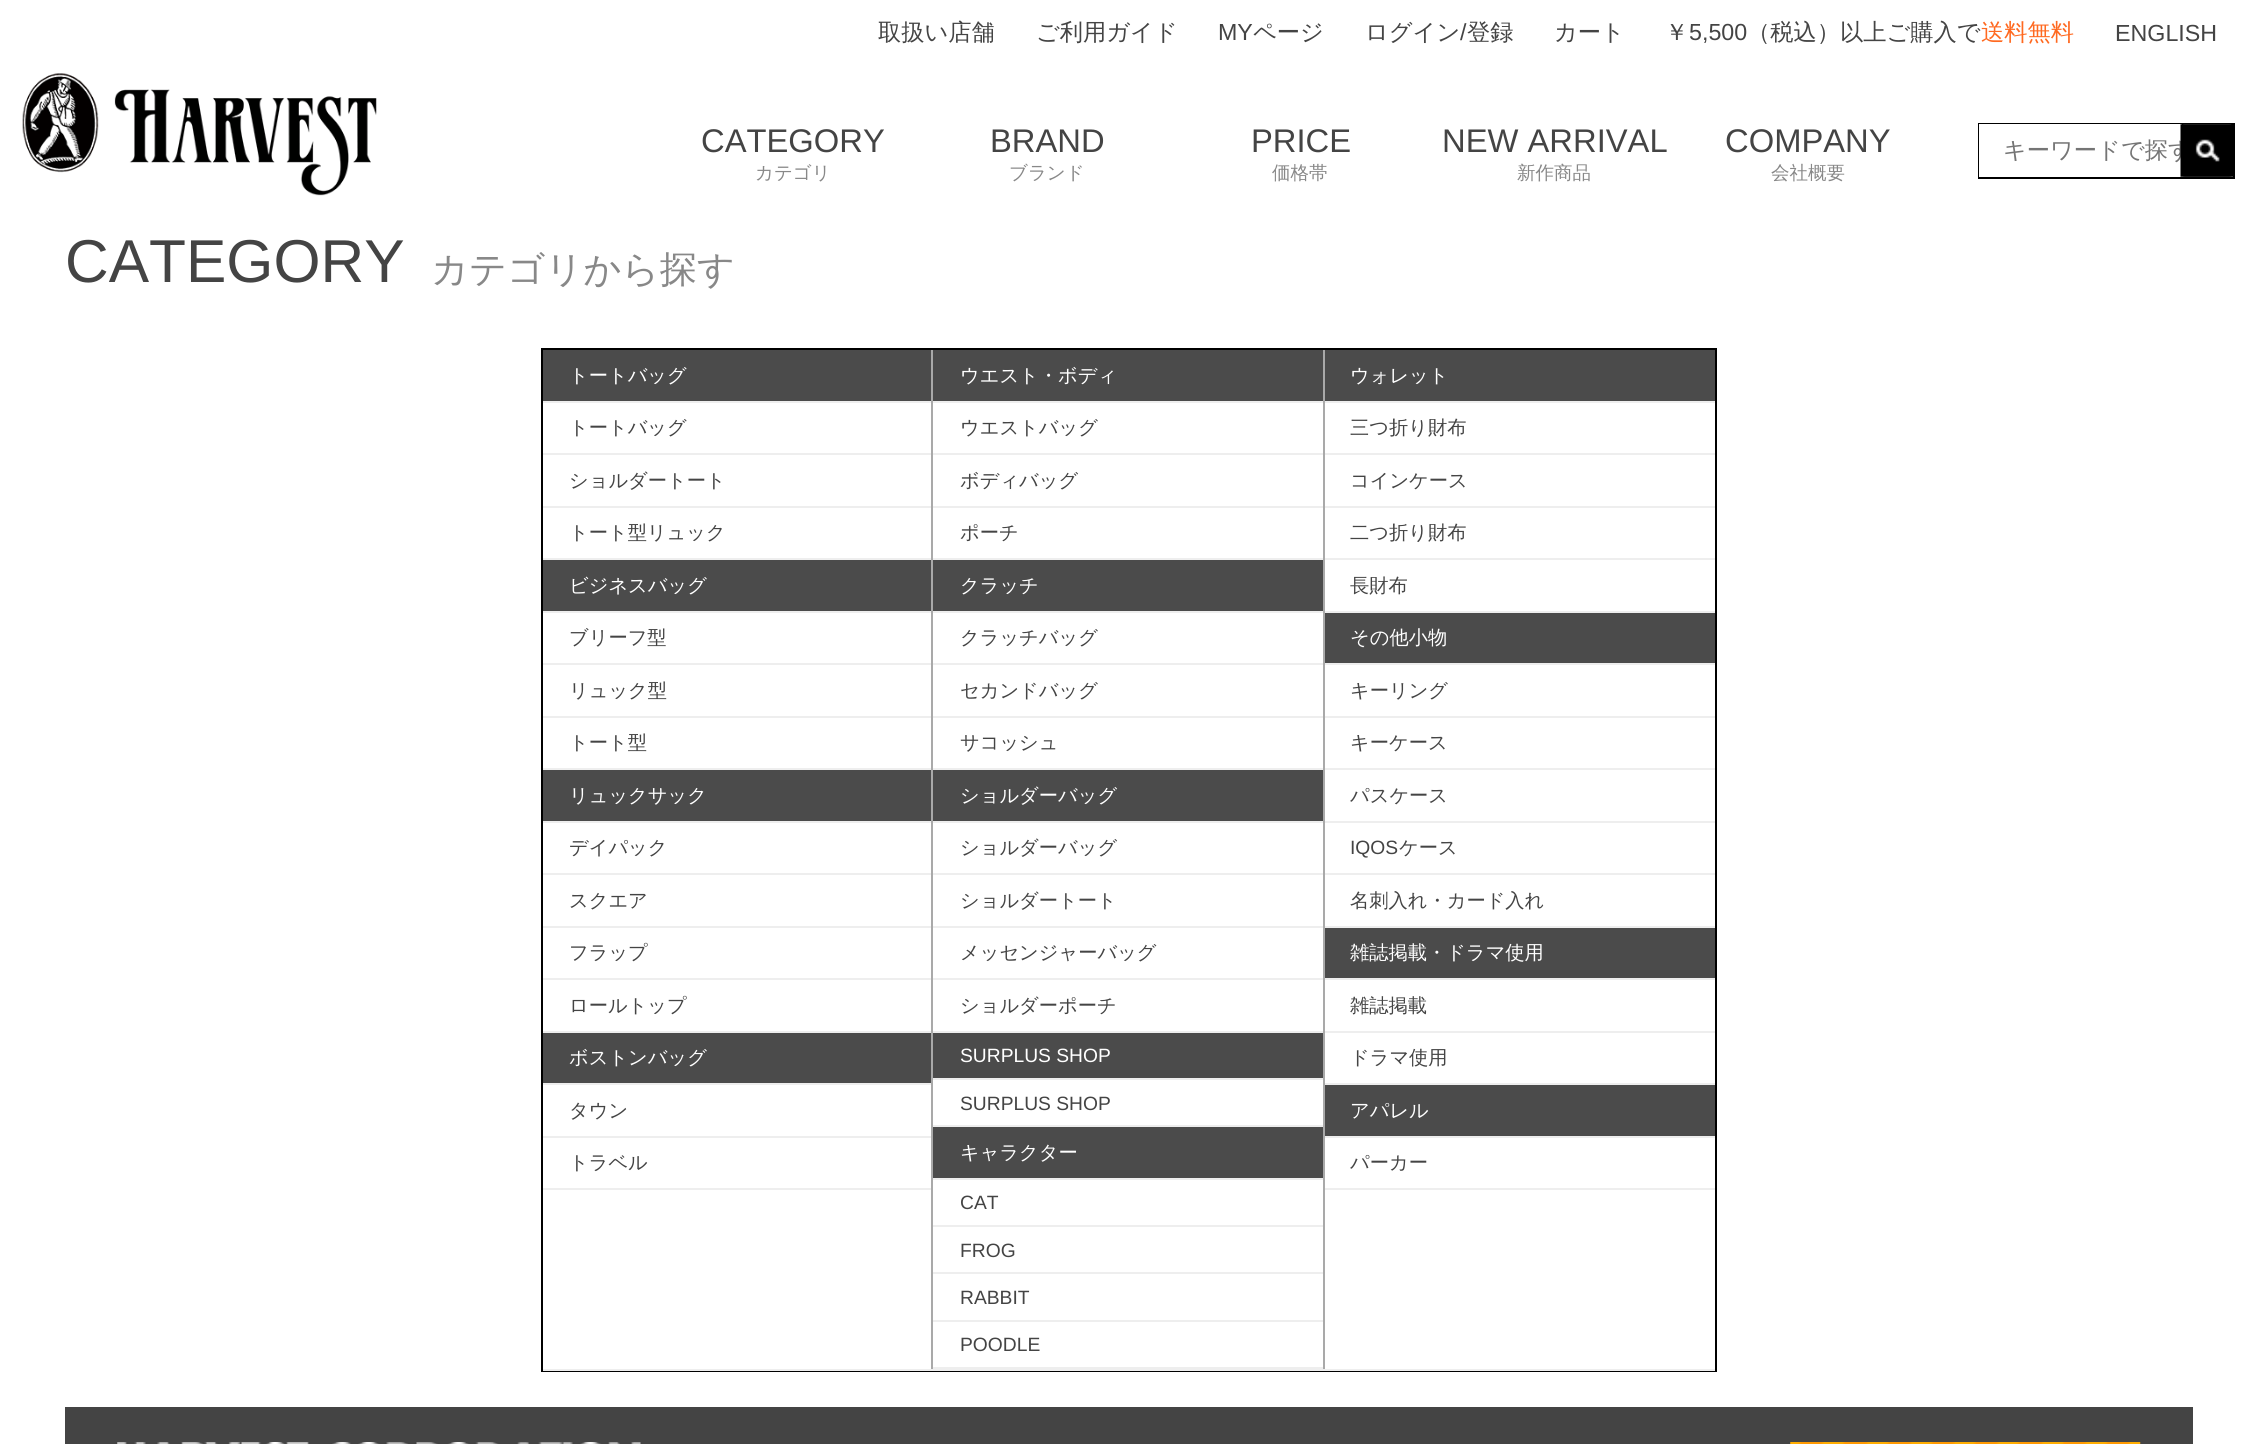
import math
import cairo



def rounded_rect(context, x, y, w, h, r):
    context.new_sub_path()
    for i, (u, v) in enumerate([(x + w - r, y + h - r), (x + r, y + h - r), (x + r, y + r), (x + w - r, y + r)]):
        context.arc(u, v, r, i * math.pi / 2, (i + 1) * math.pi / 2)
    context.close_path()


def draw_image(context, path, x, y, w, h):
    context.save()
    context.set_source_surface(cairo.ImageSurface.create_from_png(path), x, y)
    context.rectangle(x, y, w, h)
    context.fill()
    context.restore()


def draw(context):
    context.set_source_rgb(1, 1, 1)
    context.paint()
    draw_image(context, "images/1.png", 22, 73, 355, 123)
    context.rectangle(1979, 124, 255, 54)
    context.set_source_rgb(0, 0, 0)
    context.stroke()
    context.set_source_rgb(1, 1, 1)
    context.rectangle(1979, 124, 203, 53)
    context.fill()
    context.rectangle(542, 349, 1174, 1022)
    context.set_source_rgb(0, 0, 0)
    context.stroke()
    context.set_source_rgb(169 / 255, 169 / 255, 169 / 255)
    context.rectangle(931, 350, 2, 1020)
    context.fill()
    context.set_source_rgb(238 / 255, 238 / 255, 238 / 255)
    context.rectangle(543, 1369, 390, 2)
    context.fill()
    context.set_source_rgb(75 / 255, 75 / 255, 75 / 255)
    context.rectangle(543, 350, 388, 51)
    context.fill()
    context.set_source_rgb(238 / 255, 238 / 255, 238 / 255)
    context.rectangle(543, 401, 388, 2)
    context.fill()
    context.rectangle(543, 453, 388, 2)
    context.fill()
    context.rectangle(543, 506, 388, 2)
    context.fill()
    context.rectangle(543, 558, 388, 2)
    context.fill()
    context.set_source_rgb(75 / 255, 75 / 255, 75 / 255)
    context.rectangle(543, 560, 388, 51)
    context.fill()
    context.set_source_rgb(238 / 255, 238 / 255, 238 / 255)
    context.rectangle(543, 611, 388, 2)
    context.fill()
    context.rectangle(543, 663, 388, 2)
    context.fill()
    context.rectangle(543, 716, 388, 2)
    context.fill()
    context.rectangle(543, 768, 388, 2)
    context.fill()
    context.set_source_rgb(75 / 255, 75 / 255, 75 / 255)
    context.rectangle(543, 770, 388, 51)
    context.fill()
    context.set_source_rgb(238 / 255, 238 / 255, 238 / 255)
    context.rectangle(543, 821, 388, 2)
    context.fill()
    context.rectangle(543, 873, 388, 2)
    context.fill()
    context.rectangle(543, 926, 388, 2)
    context.fill()
    context.rectangle(543, 978, 388, 2)
    context.fill()
    context.rectangle(543, 1031, 388, 2)
    context.fill()
    context.set_source_rgb(75 / 255, 75 / 255, 75 / 255)
    context.rectangle(543, 1033, 388, 50)
    context.fill()
    context.set_source_rgb(238 / 255, 238 / 255, 238 / 255)
    context.rectangle(543, 1083, 388, 2)
    context.fill()
    context.rectangle(543, 1136, 388, 2)
    context.fill()
    context.rectangle(543, 1188, 388, 2)
    context.fill()
    context.set_source_rgb(169 / 255, 169 / 255, 169 / 255)
    context.rectangle(1323, 350, 2, 1020)
    context.fill()
    context.set_source_rgb(238 / 255, 238 / 255, 238 / 255)
    context.rectangle(933, 1369, 782, 2)
    context.fill()
    context.set_source_rgb(75 / 255, 75 / 255, 75 / 255)
    context.rectangle(933, 350, 390, 51)
    context.fill()
    context.set_source_rgb(238 / 255, 238 / 255, 238 / 255)
    context.rectangle(933, 401, 390, 2)
    context.fill()
    context.rectangle(933, 453, 390, 2)
    context.fill()
    context.rectangle(933, 506, 390, 2)
    context.fill()
    context.rectangle(933, 558, 390, 2)
    context.fill()
    context.set_source_rgb(75 / 255, 75 / 255, 75 / 255)
    context.rectangle(933, 560, 390, 51)
    context.fill()
    context.set_source_rgb(238 / 255, 238 / 255, 238 / 255)
    context.rectangle(933, 611, 390, 2)
    context.fill()
    context.rectangle(933, 663, 390, 2)
    context.fill()
    context.rectangle(933, 716, 390, 2)
    context.fill()
    context.rectangle(933, 768, 390, 2)
    context.fill()
    context.set_source_rgb(75 / 255, 75 / 255, 75 / 255)
    context.rectangle(933, 770, 390, 51)
    context.fill()
    context.set_source_rgb(238 / 255, 238 / 255, 238 / 255)
    context.rectangle(933, 821, 390, 2)
    context.fill()
    context.rectangle(933, 873, 390, 2)
    context.fill()
    context.rectangle(933, 926, 390, 2)
    context.fill()
    context.rectangle(933, 978, 390, 2)
    context.fill()
    context.rectangle(933, 1031, 390, 2)
    context.fill()
    context.set_source_rgb(75 / 255, 75 / 255, 75 / 255)
    context.rectangle(933, 1033, 390, 45)
    context.fill()
    context.set_source_rgb(238 / 255, 238 / 255, 238 / 255)
    context.rectangle(933, 1078, 390, 2)
    context.fill()
    context.rectangle(933, 1125, 390, 2)
    context.fill()
    context.set_source_rgb(75 / 255, 75 / 255, 75 / 255)
    context.rectangle(933, 1127, 390, 51)
    context.fill()
    context.set_source_rgb(238 / 255, 238 / 255, 238 / 255)
    context.rectangle(933, 1178, 390, 2)
    context.fill()
    context.rectangle(933, 1225, 390, 2)
    context.fill()
    context.rectangle(933, 1272, 390, 2)
    context.fill()
    context.rectangle(933, 1320, 390, 2)
    context.fill()
    context.rectangle(933, 1367, 390, 2)
    context.fill()
    context.set_source_rgb(75 / 255, 75 / 255, 75 / 255)
    context.rectangle(1325, 350, 390, 51)
    context.fill()
    context.set_source_rgb(238 / 255, 238 / 255, 238 / 255)
    context.rectangle(1325, 401, 390, 2)
    context.fill()
    context.rectangle(1325, 453, 390, 2)
    context.fill()
    context.rectangle(1325, 506, 390, 2)
    context.fill()
    context.rectangle(1325, 558, 390, 2)
    context.fill()
    context.rectangle(1325, 611, 390, 2)
    context.fill()
    context.set_source_rgb(75 / 255, 75 / 255, 75 / 255)
    context.rectangle(1325, 613, 390, 50)
    context.fill()
    context.set_source_rgb(238 / 255, 238 / 255, 238 / 255)
    context.rectangle(1325, 663, 390, 2)
    context.fill()
    context.rectangle(1325, 716, 390, 2)
    context.fill()
    context.rectangle(1325, 768, 390, 2)
    context.fill()
    context.rectangle(1325, 821, 390, 2)
    context.fill()
    context.rectangle(1325, 873, 390, 2)
    context.fill()
    context.rectangle(1325, 926, 390, 2)
    context.fill()
    context.set_source_rgb(75 / 255, 75 / 255, 75 / 255)
    context.rectangle(1325, 928, 390, 50)
    context.fill()
    context.set_source_rgb(238 / 255, 238 / 255, 238 / 255)
    context.rectangle(1325, 978, 390, 2)
    context.fill()
    context.rectangle(1325, 1031, 390, 2)
    context.fill()
    context.rectangle(1325, 1083, 390, 2)
    context.fill()
    context.set_source_rgb(75 / 255, 75 / 255, 75 / 255)
    context.rectangle(1325, 1085, 390, 51)
    context.fill()
    context.set_source_rgb(238 / 255, 238 / 255, 238 / 255)
    context.rectangle(1325, 1136, 390, 2)
    context.fill()
    context.rectangle(1325, 1188, 390, 2)
    context.fill()
    context.set_source_rgb(68 / 255, 68 / 255, 68 / 255)
    context.rectangle(65, 1407, 2128, 37)
    context.fill()
    draw_image(context, "images/3.png", 117, 1442, 524, 2)
    draw_image(context, "images/4.png", 1790, 1442, 351, 2)
    context.select_font_face("WenQuanYi Zen Hei Medium")
    context.set_font_size(23.25)
    context.move_to(878, 40)
    context.show_text("取扱い店舗")
    context.move_to(1036, 40)
    context.show_text("ご利用ガイド")
    context.select_font_face("Liberation Sans")
    context.move_to(1218, 40)
    context.show_text("MY")
    context.select_font_face("WenQuanYi Zen Hei Medium")
    context.move_to(1253, 40)
    context.show_text("ページ")
    context.move_to(1365, 40)
    context.show_text("ログイン")
    context.select_font_face("Liberation Sans")
    context.move_to(1460, 40)
    context.show_text("/")
    context.select_font_face("WenQuanYi Zen Hei Medium")
    context.move_to(1467, 40)
    context.show_text("登録")
    context.move_to(1554, 40)
    context.show_text("カート")
    context.move_to(1665, 40)
    context.show_text("￥")
    context.select_font_face("Liberation Sans")
    context.move_to(1689, 40)
    context.show_text("5,500")
    context.select_font_face("WenQuanYi Zen Hei Medium")
    context.move_to(1747, 40)
    context.show_text("（税込）以上ご購入で")
    context.set_source_rgb(1, 105 / 255, 32 / 255)
    context.move_to(1981, 40)
    context.show_text("送料無料")
    context.select_font_face("Liberation Sans")
    context.set_source_rgb(68 / 255, 68 / 255, 68 / 255)
    context.move_to(2115, 41)
    context.show_text("ENGLISH")
    context.set_font_size(32.75)
    context.move_to(701, 152)
    context.show_text("CATEGORY")
    context.select_font_face("WenQuanYi Zen Hei Medium")
    context.set_font_size(18.5)
    context.set_source_rgb(136 / 255, 136 / 255, 136 / 255)
    context.move_to(755, 179)
    context.show_text("カテゴリ")
    context.select_font_face("Liberation Sans")
    context.set_font_size(32.75)
    context.set_source_rgb(68 / 255, 68 / 255, 68 / 255)
    context.move_to(990, 152)
    context.show_text("BRAND")
    context.select_font_face("WenQuanYi Zen Hei Medium")
    context.set_font_size(18.5)
    context.set_source_rgb(136 / 255, 136 / 255, 136 / 255)
    context.move_to(1009, 179)
    context.show_text("ブランド")
    context.select_font_face("Liberation Sans")
    context.set_font_size(32.75)
    context.set_source_rgb(68 / 255, 68 / 255, 68 / 255)
    context.move_to(1251, 152)
    context.show_text("PRICE")
    context.select_font_face("WenQuanYi Zen Hei Medium")
    context.set_font_size(18.5)
    context.set_source_rgb(136 / 255, 136 / 255, 136 / 255)
    context.move_to(1272, 179)
    context.show_text("価格帯")
    context.select_font_face("Liberation Sans")
    context.set_font_size(32.75)
    context.set_source_rgb(68 / 255, 68 / 255, 68 / 255)
    context.move_to(1442, 152)
    context.show_text("NEW ARRIVAL")
    context.select_font_face("WenQuanYi Zen Hei Medium")
    context.set_font_size(18.5)
    context.set_source_rgb(136 / 255, 136 / 255, 136 / 255)
    context.move_to(1517, 179)
    context.show_text("新作商品")
    context.select_font_face("Liberation Sans")
    context.set_font_size(32.75)
    context.set_source_rgb(68 / 255, 68 / 255, 68 / 255)
    context.move_to(1725, 152)
    context.show_text("COMPANY")
    context.select_font_face("WenQuanYi Zen Hei Medium")
    context.set_font_size(18.5)
    context.set_source_rgb(136 / 255, 136 / 255, 136 / 255)
    context.move_to(1771, 179)
    context.show_text("会社概要")
    context.set_font_size(23.25)
    context.set_source_rgb(117 / 255, 117 / 255, 117 / 255)
    context.move_to(2003, 158)
    context.show_text("キーワードで探す")
    rounded_rect(context, 2182, 125, 50, 51, 3)
    context.set_source_rgb(118 / 255, 118 / 255, 118 / 255)
    context.stroke()
    draw_image(context, "images/2.png", 2180, 124, 53, 53)
    context.select_font_face("Liberation Sans")
    context.set_font_size(60.5)
    context.set_source_rgb(68 / 255, 68 / 255, 68 / 255)
    context.move_to(65, 282)
    context.show_text("CATEGORY")
    context.select_font_face("WenQuanYi Zen Hei Medium")
    context.set_font_size(37.25)
    context.set_source_rgb(136 / 255, 136 / 255, 136 / 255)
    context.move_to(431, 282)
    context.show_text("カテゴリから探す")
    context.set_font_size(19.25)
    context.set_source_rgb(1, 1, 1)
    context.move_to(569, 382)
    context.show_text("トートバッグ")
    context.set_source_rgb(68 / 255, 68 / 255, 68 / 255)
    context.move_to(569, 434)
    context.show_text("トートバッグ")
    context.move_to(569, 487)
    context.show_text("ショルダートート")
    context.move_to(569, 539)
    context.show_text("トート型リュック")
    context.set_source_rgb(1, 1, 1)
    context.move_to(569, 592)
    context.show_text("ビジネスバッグ")
    context.set_source_rgb(68 / 255, 68 / 255, 68 / 255)
    context.move_to(569, 644)
    context.show_text("ブリーフ型")
    context.move_to(569, 697)
    context.show_text("リュック型")
    context.move_to(569, 749)
    context.show_text("トート型")
    context.set_source_rgb(1, 1, 1)
    context.move_to(569, 802)
    context.show_text("リュックサック")
    context.set_source_rgb(68 / 255, 68 / 255, 68 / 255)
    context.move_to(569, 854)
    context.show_text("デイパック")
    context.move_to(569, 907)
    context.show_text("スクエア")
    context.move_to(569, 959)
    context.show_text("フラップ")
    context.move_to(569, 1012)
    context.show_text("ロールトップ")
    context.set_source_rgb(1, 1, 1)
    context.move_to(569, 1064)
    context.show_text("ボストンバッグ")
    context.set_source_rgb(68 / 255, 68 / 255, 68 / 255)
    context.move_to(569, 1117)
    context.show_text("タウン")
    context.move_to(569, 1169)
    context.show_text("トラベル")
    context.set_source_rgb(1, 1, 1)
    context.move_to(960, 382)
    context.show_text("ウエスト・ボディ")
    context.set_source_rgb(68 / 255, 68 / 255, 68 / 255)
    context.move_to(960, 434)
    context.show_text("ウエストバッグ")
    context.move_to(960, 487)
    context.show_text("ボディバッグ")
    context.move_to(960, 539)
    context.show_text("ポーチ")
    context.set_source_rgb(1, 1, 1)
    context.move_to(960, 592)
    context.show_text("クラッチ")
    context.set_source_rgb(68 / 255, 68 / 255, 68 / 255)
    context.move_to(960, 644)
    context.show_text("クラッチバッグ")
    context.move_to(960, 697)
    context.show_text("セカンドバッグ")
    context.move_to(960, 749)
    context.show_text("サコッシュ")
    context.set_source_rgb(1, 1, 1)
    context.move_to(960, 802)
    context.show_text("ショルダーバッグ")
    context.set_source_rgb(68 / 255, 68 / 255, 68 / 255)
    context.move_to(960, 854)
    context.show_text("ショルダーバッグ")
    context.move_to(960, 907)
    context.show_text("ショルダートート")
    context.move_to(960, 959)
    context.show_text("メッセンジャーバッグ")
    context.move_to(960, 1012)
    context.show_text("ショルダーポーチ")
    context.select_font_face("Liberation Sans")
    context.set_source_rgb(1, 1, 1)
    context.move_to(960, 1062)
    context.show_text("SURPLUS SHOP")
    context.set_source_rgb(68 / 255, 68 / 255, 68 / 255)
    context.move_to(960, 1110)
    context.show_text("SURPLUS SHOP")
    context.select_font_face("WenQuanYi Zen Hei Medium")
    context.set_source_rgb(1, 1, 1)
    context.move_to(960, 1159)
    context.show_text("キャラクター")
    context.select_font_face("Liberation Sans")
    context.set_source_rgb(68 / 255, 68 / 255, 68 / 255)
    context.move_to(960, 1209)
    context.show_text("CAT")
    context.move_to(960, 1257)
    context.show_text("FROG")
    context.move_to(960, 1304)
    context.show_text("RABBIT")
    context.move_to(960, 1351)
    context.show_text("POODLE")
    context.select_font_face("WenQuanYi Zen Hei Medium")
    context.set_source_rgb(1, 1, 1)
    context.move_to(1350, 382)
    context.show_text("ウォレット")
    context.set_source_rgb(68 / 255, 68 / 255, 68 / 255)
    context.move_to(1350, 434)
    context.show_text("三つ折り財布")
    context.move_to(1350, 487)
    context.show_text("コインケース")
    context.move_to(1350, 539)
    context.show_text("二つ折り財布")
    context.move_to(1350, 592)
    context.show_text("長財布")
    context.set_source_rgb(1, 1, 1)
    context.move_to(1350, 644)
    context.show_text("その他小物")
    context.set_source_rgb(68 / 255, 68 / 255, 68 / 255)
    context.move_to(1350, 697)
    context.show_text("キーリング")
    context.move_to(1350, 749)
    context.show_text("キーケース")
    context.move_to(1350, 802)
    context.show_text("パスケース")
    context.select_font_face("Liberation Sans")
    context.move_to(1350, 854)
    context.show_text("IQOS")
    context.select_font_face("WenQuanYi Zen Hei Medium")
    context.move_to(1399, 854)
    context.show_text("ケース")
    context.move_to(1350, 907)
    context.show_text("名刺入れ・カード入れ")
    context.set_source_rgb(1, 1, 1)
    context.move_to(1350, 959)
    context.show_text("雑誌掲載・ドラマ使用")
    context.set_source_rgb(68 / 255, 68 / 255, 68 / 255)
    context.move_to(1350, 1012)
    context.show_text("雑誌掲載")
    context.move_to(1350, 1064)
    context.show_text("ドラマ使用")
    context.set_source_rgb(1, 1, 1)
    context.move_to(1350, 1117)
    context.show_text("アパレル")
    context.set_source_rgb(68 / 255, 68 / 255, 68 / 255)
    context.move_to(1350, 1169)
    context.show_text("パーカー")


surface = cairo.ImageSurface(cairo.Format.RGB24, 2257, 1444)
context = cairo.Context(surface)
options = cairo.FontOptions()
options.set_hint_metrics(cairo.HintMetrics.OFF)
options.set_hint_style(cairo.HintStyle.NONE)
context.set_font_options(options)
context.set_miter_limit(4)
draw(context)
surface.write_to_png("out.png")
